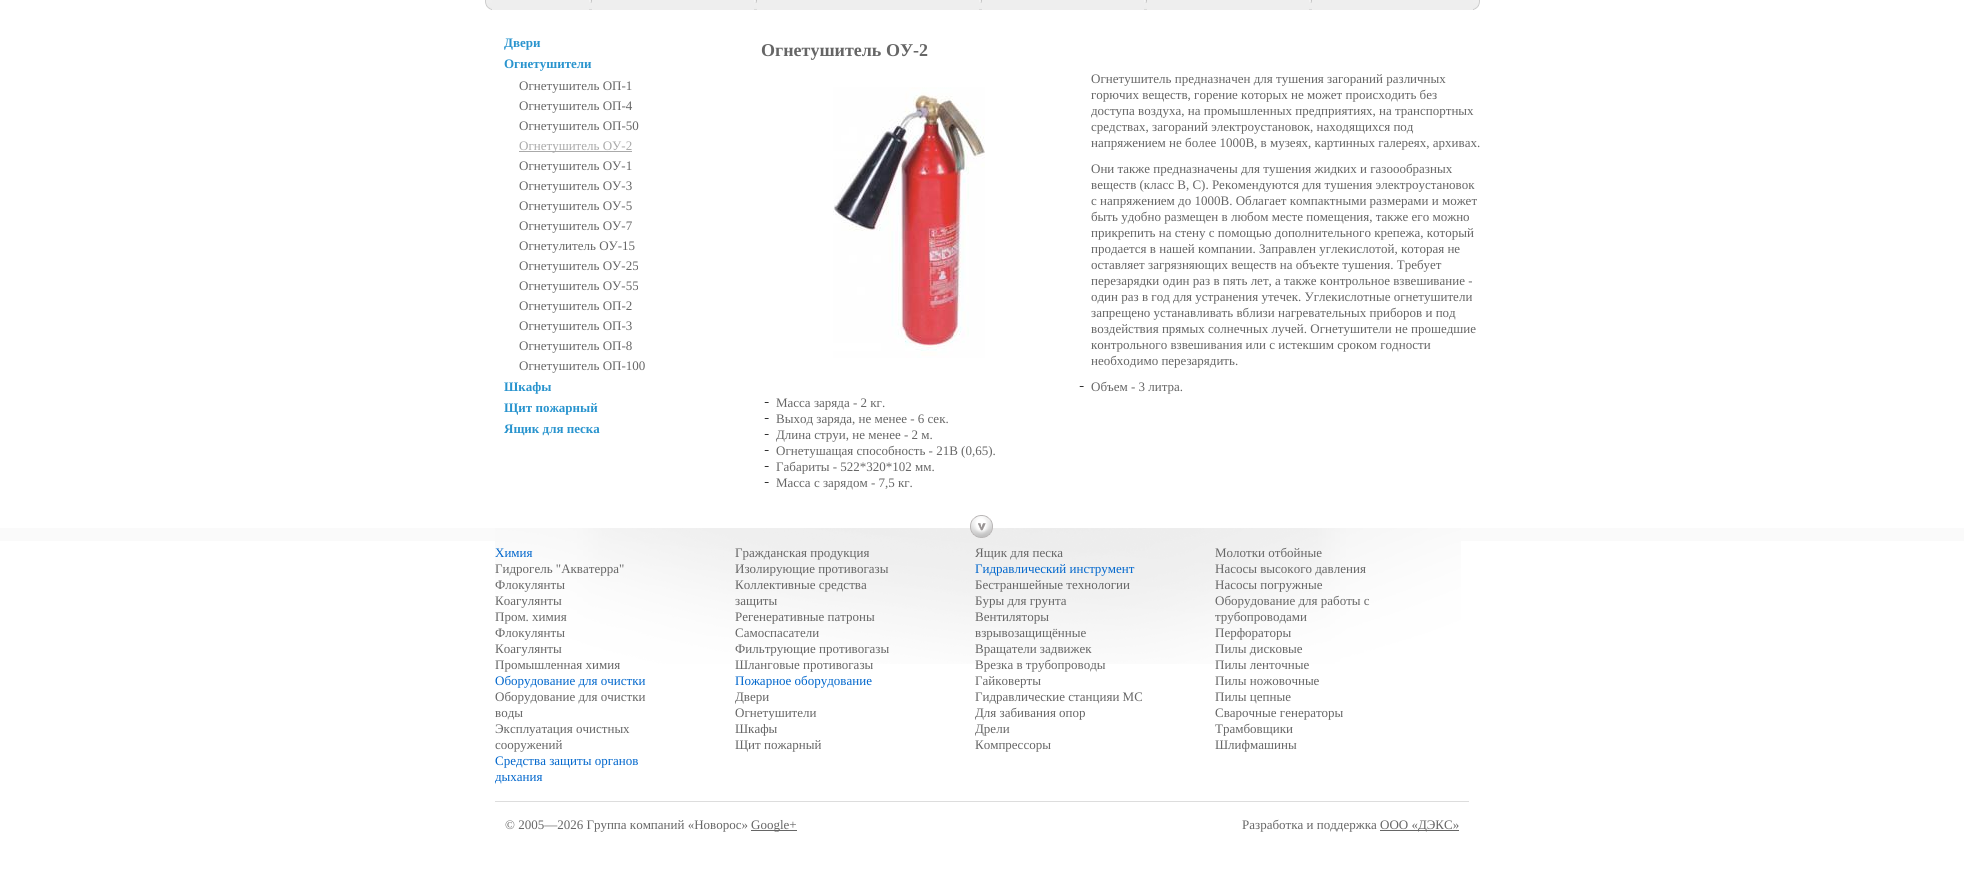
import math
import cairo



def draw_image(context, path, x, y, w, h):
    context.save()
    context.set_source_surface(cairo.ImageSurface.create_from_png(path), x, y)
    context.rectangle(x, y, w, h)
    context.fill()
    context.restore()


def draw(context):
    context.set_source_rgb(1, 1, 1)
    context.paint()
    draw_image(context, "images/1.png", 485, 0, 7, 10)
    context.set_source_rgb(238 / 255, 238 / 255, 238 / 255)
    context.rectangle(492, 0, 97, 10)
    context.fill()
    draw_image(context, "images/2.png", 589, 0, 3, 10)
    context.rectangle(592, 0, 162, 10)
    context.fill()
    draw_image(context, "images/2.png", 754, 0, 3, 10)
    context.rectangle(757, 0, 222, 10)
    context.fill()
    draw_image(context, "images/2.png", 979, 0, 3, 10)
    context.rectangle(982, 0, 162, 10)
    context.fill()
    draw_image(context, "images/2.png", 1144, 0, 3, 10)
    context.rectangle(1147, 0, 162, 10)
    context.fill()
    draw_image(context, "images/2.png", 1309, 0, 3, 10)
    context.rectangle(1312, 0, 161, 10)
    context.fill()
    draw_image(context, "images/3.png", 1473, 0, 7, 10)
    context.set_source_rgb(170 / 255, 170 / 255, 170 / 255)
    context.rectangle(519, 151, 113, 1)
    context.fill()
    draw_image(context, "images/4.png", 1079, 386, 5, 1)
    draw_image(context, "images/4.png", 764, 402, 5, 1)
    draw_image(context, "images/4.png", 764, 418, 5, 1)
    draw_image(context, "images/4.png", 764, 434, 5, 1)
    draw_image(context, "images/4.png", 764, 450, 5, 1)
    draw_image(context, "images/4.png", 764, 466, 5, 1)
    draw_image(context, "images/4.png", 764, 482, 5, 1)
    draw_image(context, "images/5.png", 833, 87, 152, 271)
    context.set_source_rgb(250 / 255, 250 / 255, 250 / 255)
    context.rectangle(0, 528, 1964, 13)
    context.fill()
    draw_image(context, "images/6.png", 495, 528, 966, 136)
    draw_image(context, "images/7.png", 970, 515, 23, 23)
    context.set_source_rgb(221 / 255, 221 / 255, 221 / 255)
    context.rectangle(495, 801, 974, 1)
    context.fill()
    context.set_source_rgb(102 / 255, 102 / 255, 102 / 255)
    context.rectangle(751, 830, 46, 1)
    context.fill()
    context.rectangle(1380, 830, 79, 1)
    context.fill()
    context.select_font_face("Liberation Serif", cairo.FontSlant.NORMAL, cairo.FontWeight.BOLD)
    context.set_font_size(13)
    context.set_source_rgb(41 / 255, 148 / 255, 206 / 255)
    context.move_to(504, 47)
    context.show_text("Двери")
    context.move_to(504, 68)
    context.show_text("Огнетушители")
    context.select_font_face("Liberation Serif")
    context.set_source_rgb(102 / 255, 102 / 255, 102 / 255)
    context.move_to(519, 90)
    context.show_text("Огнетушитель ОП-1")
    context.move_to(519, 110)
    context.show_text("Огнетушитель ОП-4")
    context.move_to(519, 130)
    context.show_text("Огнетушитель ОП-50")
    context.set_source_rgb(170 / 255, 170 / 255, 170 / 255)
    context.move_to(519, 150)
    context.show_text("Огнетушитель ОУ-2")
    context.set_source_rgb(102 / 255, 102 / 255, 102 / 255)
    context.move_to(519, 170)
    context.show_text("Огнетушитель ОУ-1")
    context.move_to(519, 190)
    context.show_text("Огнетушитель ОУ-3")
    context.move_to(519, 210)
    context.show_text("Огнетушитель ОУ-5")
    context.move_to(519, 230)
    context.show_text("Огнетушитель ОУ-7")
    context.move_to(519, 250)
    context.show_text("Огнетулитель ОУ-15")
    context.move_to(519, 270)
    context.show_text("Огнетушитель ОУ-25")
    context.move_to(519, 290)
    context.show_text("Огнетушитель ОУ-55")
    context.move_to(519, 310)
    context.show_text("Огнетушитель ОП-2")
    context.move_to(519, 330)
    context.show_text("Огнетушитель ОП-3")
    context.move_to(519, 350)
    context.show_text("Огнетушитель ОП-8")
    context.move_to(519, 370)
    context.show_text("Огнетушитель ОП-100")
    context.select_font_face("Liberation Serif", cairo.FontSlant.NORMAL, cairo.FontWeight.BOLD)
    context.set_source_rgb(41 / 255, 148 / 255, 206 / 255)
    context.move_to(504, 391)
    context.show_text("Шкафы")
    context.move_to(504, 412)
    context.show_text("Щит пожарный")
    context.move_to(504, 433)
    context.show_text("Ящик для песка")
    context.set_font_size(18)
    context.set_source_rgb(102 / 255, 102 / 255, 102 / 255)
    context.move_to(761, 56)
    context.show_text("Огнетушитель ОУ-2")
    context.select_font_face("Liberation Serif")
    context.set_font_size(13)
    context.move_to(1091, 83)
    context.show_text("Огнетушитель предназначен для тушения загораний различных")
    context.move_to(1091, 99)
    context.show_text("горючих веществ, горение которых не может происходить без")
    context.move_to(1091, 115)
    context.show_text("доступа воздуха, на промышленных предприятиях, на транспортных")
    context.move_to(1091, 131)
    context.show_text("средствах, загораний электроустановок, находящихся под")
    context.move_to(1091, 147)
    context.show_text("напряжением не более 1000В, в музеях, картинных галереях, архивах.")
    context.move_to(1091, 173)
    context.show_text("Они также предназначены для тушения жидких и газоообразных")
    context.move_to(1091, 189)
    context.show_text("веществ (класс В, С). Рекомендуются для тушения электроустановок")
    context.move_to(1091, 205)
    context.show_text("с напряжением до 1000В. Облагает компактными размерами и может")
    context.move_to(1091, 221)
    context.show_text("быть удобно размещен в любом месте помещения, также его можно")
    context.move_to(1091, 237)
    context.show_text("прикрепить на стену с помощью дополнительного крепежа, который")
    context.move_to(1091, 253)
    context.show_text("продается в нашей компании. Заправлен углекислотой, которая не")
    context.move_to(1091, 269)
    context.show_text("оставляет загрязняющих веществ на объекте тушения. Требует")
    context.move_to(1091, 285)
    context.show_text("перезарядки один раз в пять лет, а также контрольное взвешивание -")
    context.move_to(1091, 301)
    context.show_text("один раз в год для устранения утечек. Углекислотные огнетушители")
    context.move_to(1091, 317)
    context.show_text("запрещено устанавливать вблизи нагревательных приборов и под")
    context.move_to(1091, 333)
    context.show_text("воздействия прямых солнечных лучей. Огнетушители не прошедшие")
    context.move_to(1091, 349)
    context.show_text("контрольного взвешивания или с истекшим сроком годности")
    context.move_to(1091, 365)
    context.show_text("необходимо перезарядить.")
    context.move_to(1091, 391)
    context.show_text("Объем - 3 литра.")
    context.move_to(776, 407)
    context.show_text("Масса заряда - 2 кг.")
    context.move_to(776, 423)
    context.show_text("Выход заряда, не менее - 6 сек.")
    context.move_to(776, 439)
    context.show_text("Длина струи, не менее - 2 м.")
    context.move_to(776, 455)
    context.show_text("Огнетушащая способность - 21B (0,65).")
    context.move_to(776, 471)
    context.show_text("Габариты - 522*320*102 мм.")
    context.move_to(776, 487)
    context.show_text("Масса с зарядом - 7,5 кг.")
    context.set_source_rgb(0, 102 / 255, 204 / 255)
    context.move_to(495, 557)
    context.show_text("Химия")
    context.set_source_rgb(102 / 255, 102 / 255, 102 / 255)
    context.move_to(495, 573)
    context.show_text("Гидрогель \"Акватерра\"")
    context.move_to(495, 589)
    context.show_text("Флокулянты")
    context.move_to(495, 605)
    context.show_text("Коагулянты")
    context.move_to(495, 621)
    context.show_text("Пром. химия")
    context.move_to(495, 637)
    context.show_text("Флокулянты")
    context.move_to(495, 653)
    context.show_text("Коагулянты")
    context.move_to(495, 669)
    context.show_text("Промышленная химия")
    context.set_source_rgb(0, 102 / 255, 204 / 255)
    context.move_to(495, 685)
    context.show_text("Оборудование для очистки")
    context.set_source_rgb(102 / 255, 102 / 255, 102 / 255)
    context.move_to(495, 701)
    context.show_text("Оборудование для очистки")
    context.move_to(495, 717)
    context.show_text("воды")
    context.move_to(495, 733)
    context.show_text("Эксплуатация очистных")
    context.move_to(495, 749)
    context.show_text("сооружений")
    context.set_source_rgb(0, 102 / 255, 204 / 255)
    context.move_to(495, 765)
    context.show_text("Средства защиты органов")
    context.move_to(495, 781)
    context.show_text("дыхания")
    context.set_source_rgb(102 / 255, 102 / 255, 102 / 255)
    context.move_to(735, 557)
    context.show_text("Гражданская продукция")
    context.move_to(735, 573)
    context.show_text("Изолирующие противогазы")
    context.move_to(735, 589)
    context.show_text("Коллективные средства")
    context.move_to(735, 605)
    context.show_text("защиты")
    context.move_to(735, 621)
    context.show_text("Регенеративные патроны")
    context.move_to(735, 637)
    context.show_text("Самоспасатели")
    context.move_to(735, 653)
    context.show_text("Фильтрующие противогазы")
    context.move_to(735, 669)
    context.show_text("Шланговые противогазы")
    context.set_source_rgb(0, 102 / 255, 204 / 255)
    context.move_to(735, 685)
    context.show_text("Пожарное оборудование")
    context.set_source_rgb(102 / 255, 102 / 255, 102 / 255)
    context.move_to(735, 701)
    context.show_text("Двери")
    context.move_to(735, 717)
    context.show_text("Огнетушители")
    context.move_to(735, 733)
    context.show_text("Шкафы")
    context.move_to(735, 749)
    context.show_text("Щит пожарный")
    context.move_to(975, 557)
    context.show_text("Ящик для песка")
    context.set_source_rgb(0, 102 / 255, 204 / 255)
    context.move_to(975, 573)
    context.show_text("Гидравлический инструмент")
    context.set_source_rgb(102 / 255, 102 / 255, 102 / 255)
    context.move_to(975, 589)
    context.show_text("Бестраншейные технологии")
    context.move_to(975, 605)
    context.show_text("Буры для грунта")
    context.move_to(975, 621)
    context.show_text("Вентиляторы")
    context.move_to(975, 637)
    context.show_text("взрывозащищённые")
    context.move_to(975, 653)
    context.show_text("Вращатели задвижек")
    context.move_to(975, 669)
    context.show_text("Врезка в трубопроводы")
    context.move_to(975, 685)
    context.show_text("Гайковерты")
    context.move_to(975, 701)
    context.show_text("Гидравлические станцияи МС")
    context.move_to(975, 717)
    context.show_text("Для забивания опор")
    context.move_to(975, 733)
    context.show_text("Дрели")
    context.move_to(975, 749)
    context.show_text("Компрессоры")
    context.move_to(1215, 557)
    context.show_text("Молотки отбойные")
    context.move_to(1215, 573)
    context.show_text("Насосы высокого давления")
    context.move_to(1215, 589)
    context.show_text("Насосы погружные")
    context.move_to(1215, 605)
    context.show_text("Оборудование для работы с")
    context.move_to(1215, 621)
    context.show_text("трубопроводами")
    context.move_to(1215, 637)
    context.show_text("Перфораторы")
    context.move_to(1215, 653)
    context.show_text("Пилы дисковые")
    context.move_to(1215, 669)
    context.show_text("Пилы ленточные")
    context.move_to(1215, 685)
    context.show_text("Пилы ножовочные")
    context.move_to(1215, 701)
    context.show_text("Пилы цепные")
    context.move_to(1215, 717)
    context.show_text("Сварочные генераторы")
    context.move_to(1215, 733)
    context.show_text("Трамбовщики")
    context.move_to(1215, 749)
    context.show_text("Шлифмашины")
    context.move_to(505, 829)
    context.show_text("© 2005—2026 Группа компаний «Новорос»")
    context.move_to(751, 829)
    context.show_text("Google+")
    context.move_to(1242, 829)
    context.show_text("Разработка и поддержка")
    context.move_to(1380, 829)
    context.show_text("ООО «ДЭКС»")


surface = cairo.ImageSurface(cairo.Format.RGB24, 1964, 873)
context = cairo.Context(surface)
options = cairo.FontOptions()
options.set_hint_metrics(cairo.HintMetrics.OFF)
options.set_hint_style(cairo.HintStyle.NONE)
context.set_font_options(options)
context.set_miter_limit(4)
draw(context)
surface.write_to_png("out.png")
